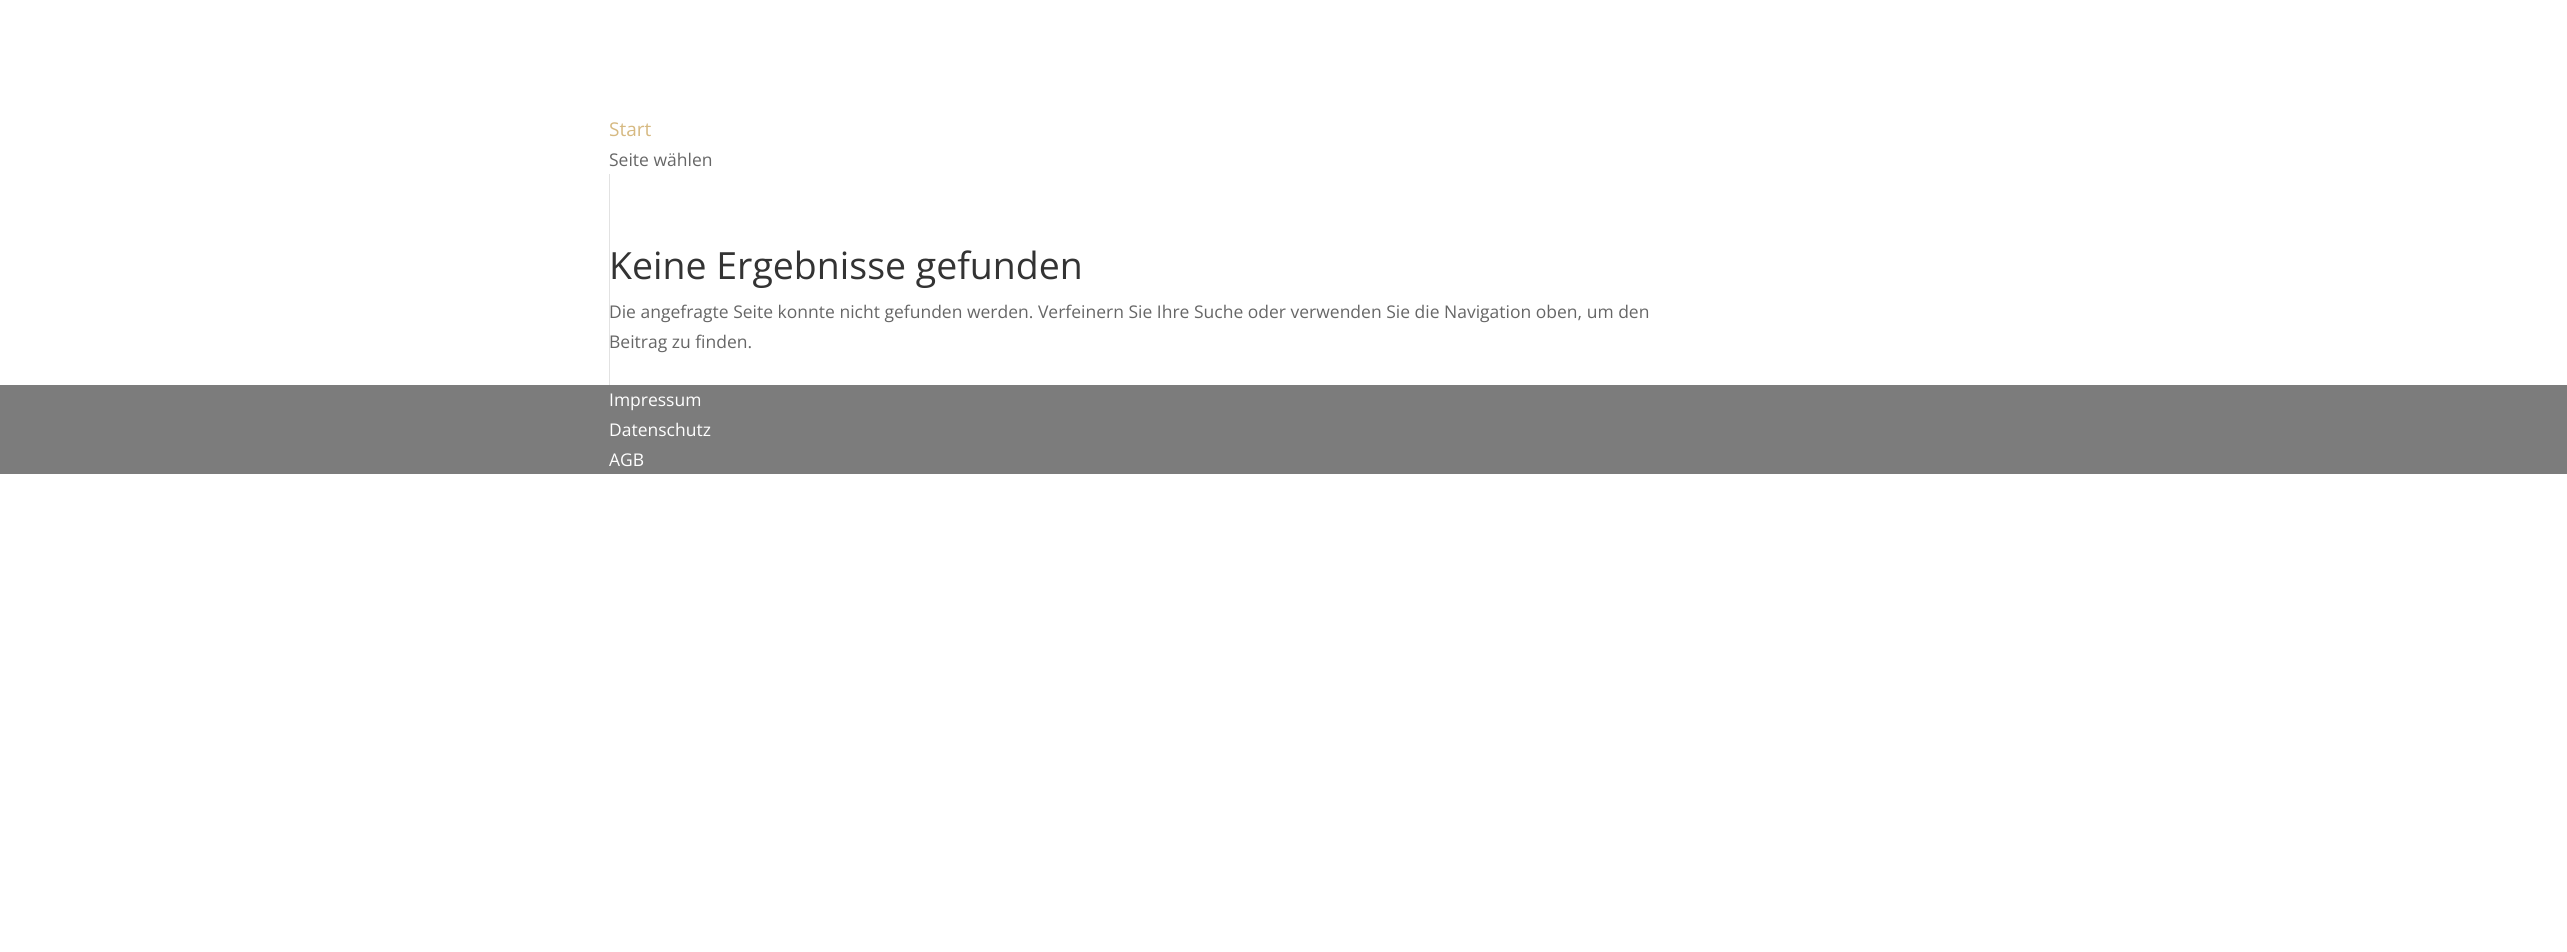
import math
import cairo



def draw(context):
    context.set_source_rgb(1, 1, 1)
    context.paint()
    context.set_source_rgb(226 / 255, 226 / 255, 226 / 255)
    context.rectangle(609, 174, 1, 211)
    context.fill()
    context.set_source_rgb(124 / 255, 124 / 255, 124 / 255)
    context.rectangle(0, 385, 2567, 89)
    context.fill()
    context.select_font_face("Open Sans")
    context.set_font_size(19)
    context.set_source_rgb(214 / 255, 185 / 255, 129 / 255)
    context.move_to(609, 136)
    context.show_text("Start")
    context.set_font_size(17.5)
    context.set_source_rgb(102 / 255, 102 / 255, 102 / 255)
    context.move_to(609, 166)
    context.show_text("Seite wählen")
    context.set_font_size(37.5)
    context.set_source_rgb(51 / 255, 51 / 255, 51 / 255)
    context.move_to(609, 279)
    context.show_text("Keine Ergebnisse gefunden")
    context.set_font_size(17.5)
    context.set_source_rgb(102 / 255, 102 / 255, 102 / 255)
    context.move_to(609, 318)
    context.show_text("Die angefragte Seite konnte nicht gefunden werden. Verfeinern Sie Ihre Suche oder verwenden Sie die Navigation oben, um den")
    context.move_to(609, 348)
    context.show_text("Beitrag zu finden.")
    context.set_source_rgb(1, 1, 1)
    context.move_to(609, 406)
    context.show_text("Impressum")
    context.move_to(609, 436)
    context.show_text("Datenschutz")
    context.move_to(609, 466)
    context.show_text("AGB")


surface = cairo.ImageSurface(cairo.Format.RGB24, 2567, 952)
context = cairo.Context(surface)
options = cairo.FontOptions()
options.set_hint_metrics(cairo.HintMetrics.OFF)
options.set_hint_style(cairo.HintStyle.NONE)
context.set_font_options(options)
context.set_miter_limit(4)
draw(context)
surface.write_to_png("out.png")
